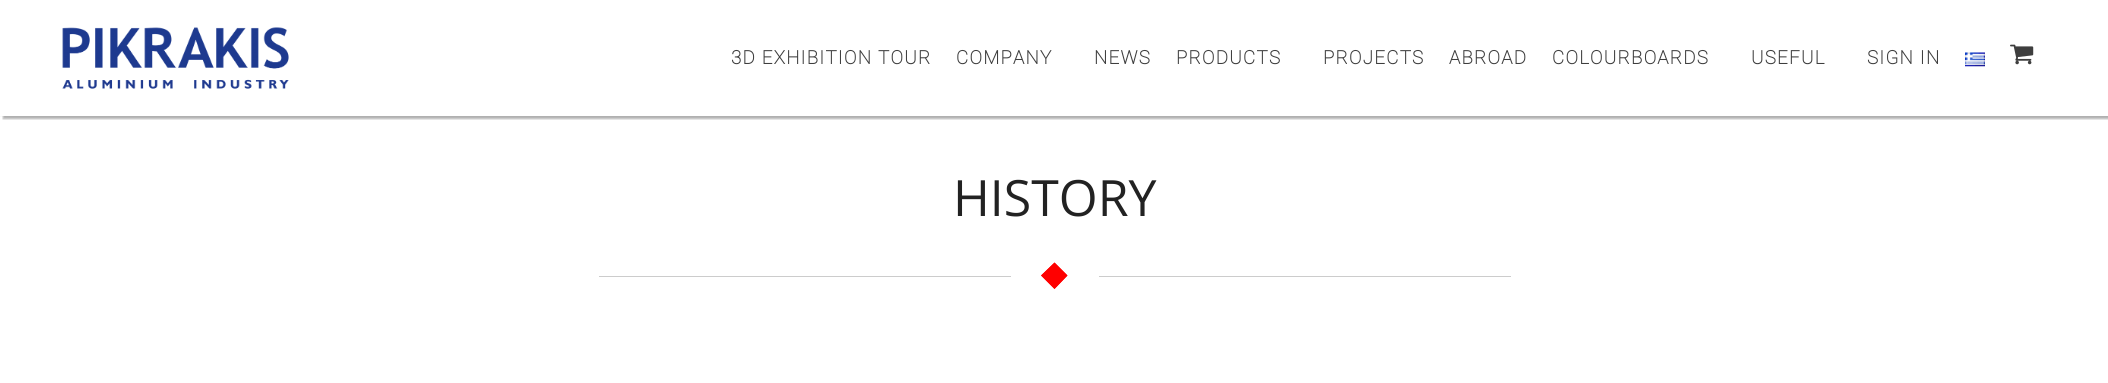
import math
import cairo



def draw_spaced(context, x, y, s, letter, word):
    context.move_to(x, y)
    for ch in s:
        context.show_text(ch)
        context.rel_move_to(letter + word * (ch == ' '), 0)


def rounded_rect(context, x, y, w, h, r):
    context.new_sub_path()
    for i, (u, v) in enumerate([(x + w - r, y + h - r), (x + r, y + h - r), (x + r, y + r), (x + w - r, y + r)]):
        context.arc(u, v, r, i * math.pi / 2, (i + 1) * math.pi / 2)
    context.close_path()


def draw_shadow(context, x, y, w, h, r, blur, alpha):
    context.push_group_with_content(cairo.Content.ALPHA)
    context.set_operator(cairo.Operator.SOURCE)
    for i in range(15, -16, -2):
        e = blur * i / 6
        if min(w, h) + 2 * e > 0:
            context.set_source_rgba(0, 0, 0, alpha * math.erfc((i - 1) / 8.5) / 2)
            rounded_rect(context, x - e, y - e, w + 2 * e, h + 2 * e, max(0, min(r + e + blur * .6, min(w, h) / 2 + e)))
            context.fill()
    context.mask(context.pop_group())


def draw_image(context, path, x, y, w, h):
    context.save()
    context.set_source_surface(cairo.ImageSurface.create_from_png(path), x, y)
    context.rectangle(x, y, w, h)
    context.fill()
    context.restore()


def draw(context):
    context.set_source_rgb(1, 1, 1)
    context.paint()
    context.set_source_rgb(250 / 255, 250 / 255, 250 / 255)
    context.rectangle(0, 116, 2108, 1)
    context.fill()
    context.save()
    context.rectangle(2, 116, 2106, 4)
    context.clip()
    context.set_source_rgb(0, 0, 0)
    draw_shadow(context, 3, 3, 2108, 116, 0, 1, 0.3)
    context.restore()
    draw_image(context, "images/1.png", 62, 27, 227, 62)
    draw_image(context, "images/2.png", 1965, 52, 20, 15)
    draw_image(context, "images/3.png", 2010, 44, 24, 21)
    context.set_source_rgb(1, 0, 0)
    context.new_path()
    context.move_to(1041, 275.5)
    context.line_to(1054.5, 262.5)
    context.line_to(1067.5, 275.5)
    context.line_to(1054.5, 289)
    context.close_path()
    context.fill()
    context.new_path()
    context.move_to(1042, 275.5)
    context.line_to(1054.5, 263.5)
    context.line_to(1066.5, 275.5)
    context.line_to(1054.5, 288)
    context.close_path()
    context.set_line_width(1.3)
    context.stroke()
    context.set_source_rgb(204 / 255, 204 / 255, 204 / 255)
    context.rectangle(599, 276, 412, 1)
    context.fill()
    context.rectangle(1099, 276, 412, 1)
    context.fill()
    context.select_font_face("Roboto", cairo.FontSlant.NORMAL, cairo.FontWeight.BOLD)
    context.set_font_size(18.75)
    context.set_source_rgb(62 / 255, 62 / 255, 62 / 255)
    draw_spaced(context, 731, 64, "3D EXHIBITION TOUR", 1.25, 0)
    draw_spaced(context, 956, 64, "COMPANY", 1.25, 0)
    draw_spaced(context, 1094, 64, "NEWS", 1.25, 0)
    draw_spaced(context, 1176, 64, "PRODUCTS", 1.25, 0)
    draw_spaced(context, 1323, 64, "PROJECTS", 1.25, 0)
    draw_spaced(context, 1449, 64, "ABROAD", 1.25, 0)
    draw_spaced(context, 1552, 64, "COLOURBOARDS", 1.25, 0)
    draw_spaced(context, 1751, 64, "USEFUL", 1.25, 0)
    draw_spaced(context, 1867, 64, "SIGN IN", 1.25, 0)
    context.select_font_face("Open Sans")
    context.set_font_size(50)
    context.set_source_rgb(34 / 255, 34 / 255, 34 / 255)
    context.move_to(953, 216)
    context.show_text("HISTORY")


surface = cairo.ImageSurface(cairo.Format.RGB24, 2108, 383)
context = cairo.Context(surface)
options = cairo.FontOptions()
options.set_hint_metrics(cairo.HintMetrics.OFF)
options.set_hint_style(cairo.HintStyle.NONE)
context.set_font_options(options)
context.set_miter_limit(4)
draw(context)
surface.write_to_png("out.png")
